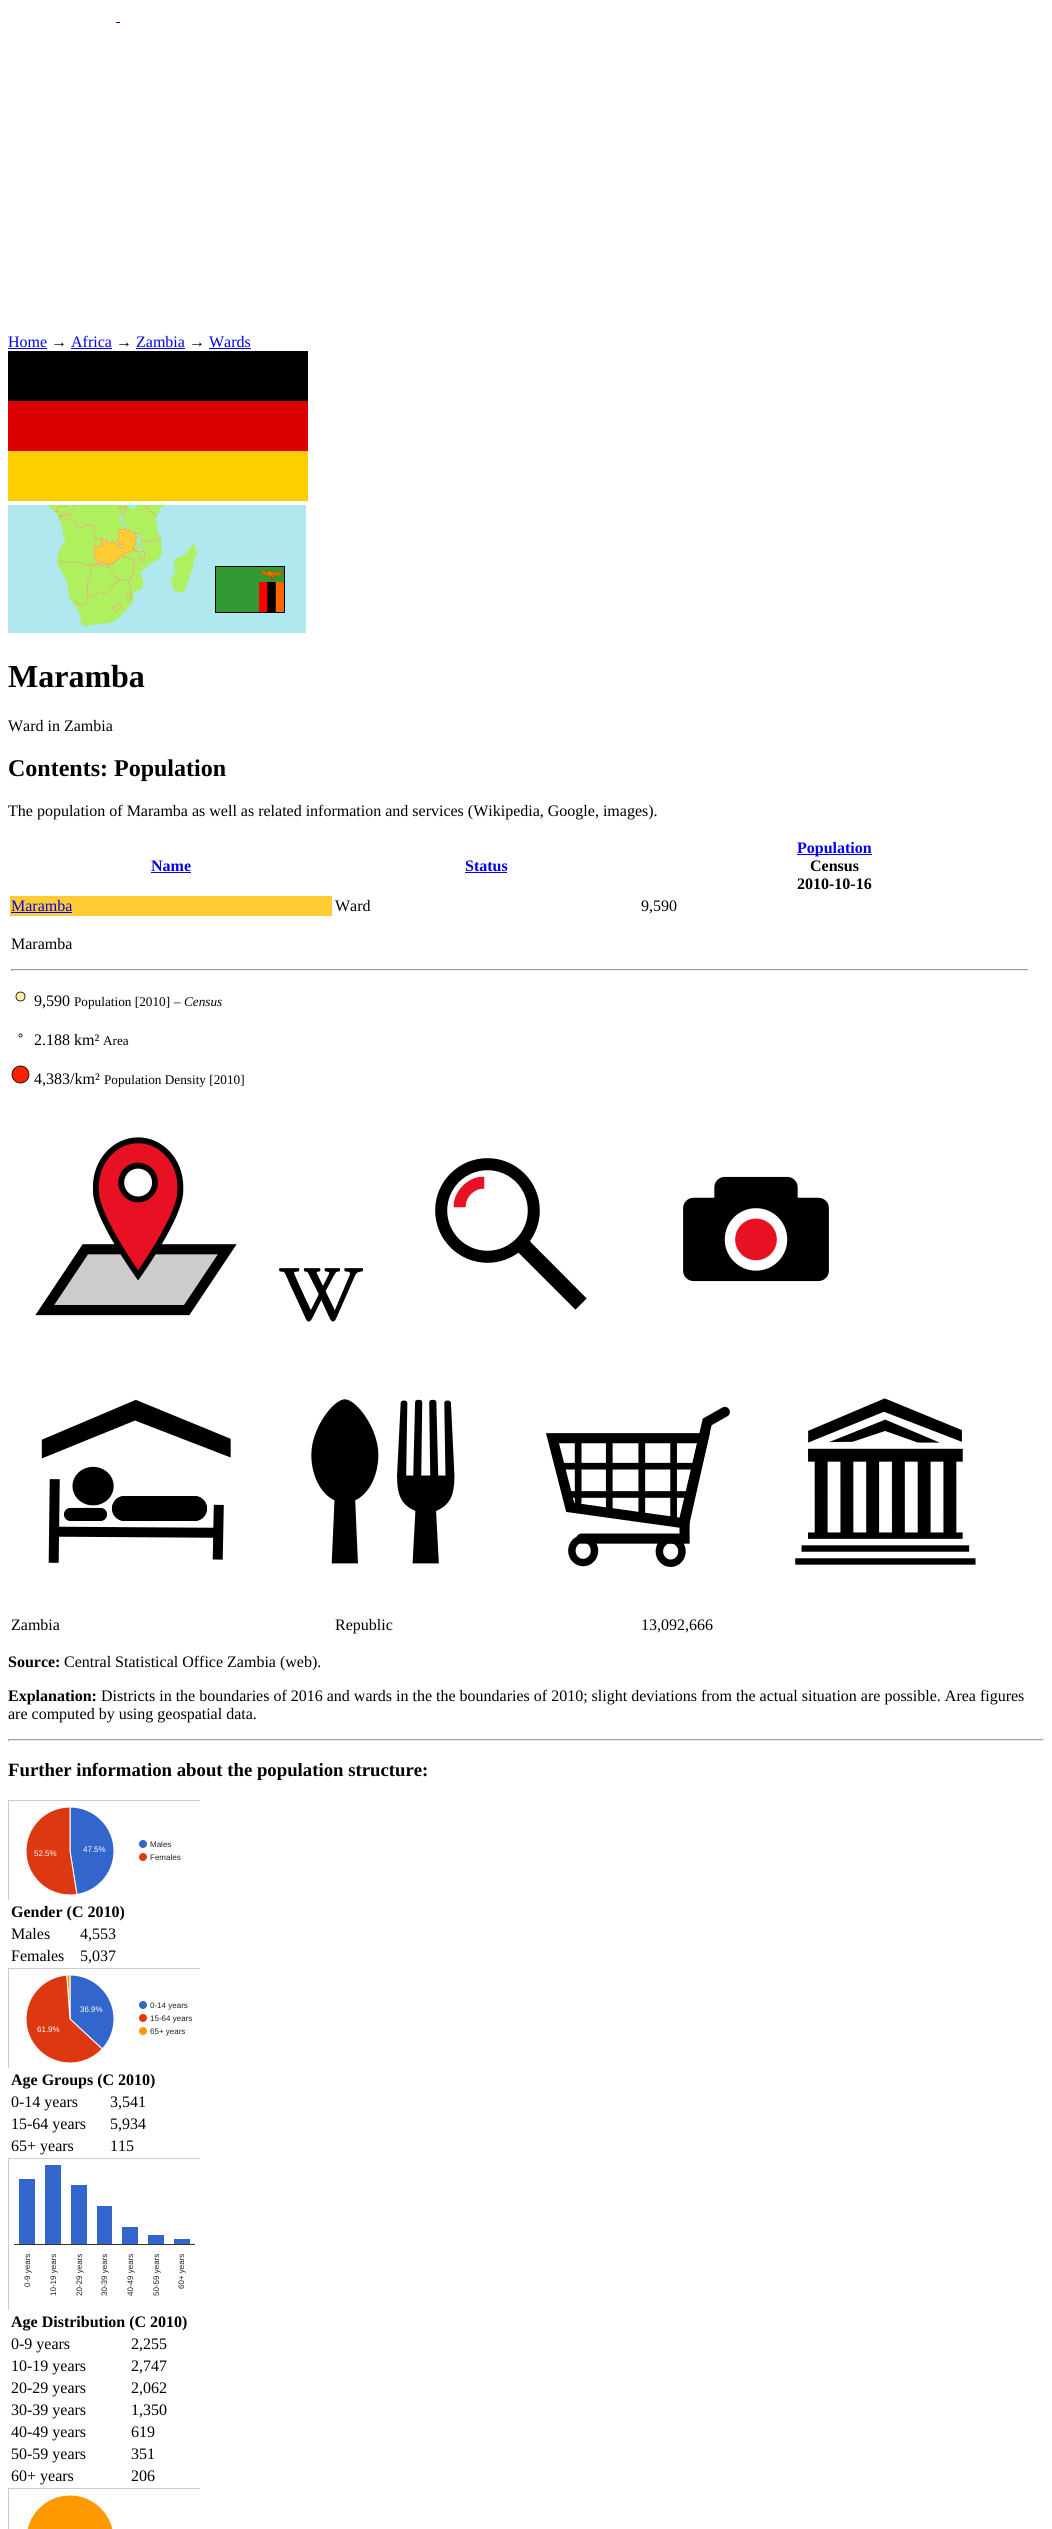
import math
import cairo



def draw_image(context, path, x, y, w, h):
    context.save()
    context.set_source_surface(cairo.ImageSurface.create_from_png(path), x, y)
    context.rectangle(x, y, w, h)
    context.fill()
    context.restore()


def draw(context):
    context.set_source_rgb(1, 1, 1)
    context.paint()
    context.set_source_rgb(0, 0, 238 / 255)
    context.rectangle(116, 22, 4, 1)
    context.fill()
    context.rectangle(8, 348, 39, 1)
    context.fill()
    context.rectangle(71, 348, 41, 1)
    context.fill()
    context.rectangle(136, 348, 49, 1)
    context.fill()
    context.rectangle(209, 348, 42, 1)
    context.fill()
    context.set_source_rgb(0, 0, 0)
    context.rectangle(8, 351, 300, 50)
    context.fill()
    context.set_source_rgb(221 / 255, 0, 0)
    context.rectangle(8, 401, 300, 50)
    context.fill()
    context.set_source_rgb(1, 206 / 255, 0)
    context.rectangle(8, 451, 300, 50)
    context.fill()
    draw_image(context, "images/1.png", 8, 505, 298, 128)
    context.set_source_rgb(0, 0, 238 / 255)
    context.rectangle(151, 872, 40, 1)
    context.fill()
    context.rectangle(465, 872, 42, 1)
    context.fill()
    context.rectangle(797, 854, 75, 1)
    context.fill()
    context.set_source_rgb(1, 204 / 255, 51 / 255)
    context.rectangle(10, 896, 322, 20)
    context.fill()
    context.set_source_rgb(0, 0, 238 / 255)
    context.rectangle(11, 912, 61, 1)
    context.fill()
    context.set_source_rgb(159 / 255, 159 / 255, 159 / 255)
    context.rectangle(11, 969, 1018, 1)
    context.fill()
    context.set_source_rgb(238 / 255, 238 / 255, 238 / 255)
    context.rectangle(1028, 969, 1, 2)
    context.fill()
    context.rectangle(11, 970, 1018, 1)
    context.fill()
    context.set_source_rgb(159 / 255, 159 / 255, 159 / 255)
    context.rectangle(11, 969, 1, 2)
    context.fill()
    context.set_source_rgb(1, 244 / 255, 170 / 255)
    context.arc(20.5, 996.5, 4.5, 0, 2 * math.pi)
    context.fill_preserve()
    context.set_source_rgb(0, 0, 0)
    context.set_line_width(0.8)
    context.stroke()
    context.arc(20.5, 1035.5, 1.6, 0, 2 * math.pi)
    context.stroke()
    context.set_source_rgb(249 / 255, 33 / 255, 0)
    context.arc(20.5, 1074.5, 8.5, 0, 2 * math.pi)
    context.fill_preserve()
    context.set_source_rgb(0, 0, 0)
    context.stroke()
    draw_image(context, "images/2.png", 35, 1137, 202, 179)
    draw_image(context, "images/3.png", 435, 1158, 152, 152)
    draw_image(context, "images/4.png", 683, 1176, 146, 106)
    draw_image(context, "images/5.png", 279, 1268, 84, 54)
    draw_image(context, "images/6.png", 41, 1399, 190, 164)
    draw_image(context, "images/7.png", 311, 1399, 144, 165)
    draw_image(context, "images/8.png", 546, 1406, 184, 161)
    draw_image(context, "images/9.png", 795, 1398, 181, 167)
    context.set_source_rgb(159 / 255, 159 / 255, 159 / 255)
    context.rectangle(8, 1739, 1036, 1)
    context.fill()
    context.set_source_rgb(238 / 255, 238 / 255, 238 / 255)
    context.rectangle(1043, 1739, 1, 2)
    context.fill()
    context.rectangle(8, 1740, 1036, 1)
    context.fill()
    context.set_source_rgb(159 / 255, 159 / 255, 159 / 255)
    context.rectangle(8, 1739, 1, 2)
    context.fill()
    draw_image(context, "images/10.png", 8, 1800, 192, 100)
    draw_image(context, "images/11.png", 8, 1968, 192, 100)
    context.save()
    context.rectangle(8, 2158, 192, 152)
    context.clip()
    context.rectangle(8.5, 2158.5, 192, 152)
    context.set_source_rgb(204 / 255, 204 / 255, 204 / 255)
    context.set_line_width(1)
    context.stroke()
    context.restore()
    context.set_source_rgb(51 / 255, 102 / 255, 204 / 255)
    context.rectangle(19, 2179, 16, 65)
    context.fill()
    context.set_source_rgb(51 / 255, 51 / 255, 51 / 255)
    context.rectangle(14, 2244, 181, 1)
    context.fill()
    context.set_source_rgb(51 / 255, 102 / 255, 204 / 255)
    context.rectangle(45, 2165, 16, 79)
    context.fill()
    context.rectangle(71, 2185, 16, 59)
    context.fill()
    context.rectangle(97, 2206, 15, 38)
    context.fill()
    context.rectangle(122, 2227, 16, 17)
    context.fill()
    context.rectangle(148, 2235, 16, 9)
    context.fill()
    context.rectangle(174, 2239, 16, 5)
    context.fill()
    context.save()
    context.rectangle(8, 2488, 192, 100)
    context.clip()
    context.rectangle(8.5, 2488.5, 192, 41)
    context.set_source_rgb(204 / 255, 204 / 255, 204 / 255)
    context.set_line_width(1)
    context.stroke()
    context.restore()
    context.set_source_rgb(1, 153 / 255, 0)
    context.arc(70, 2539, 44, 0, 2 * math.pi)
    context.fill_preserve()
    context.set_source_rgb(1, 1, 1)
    context.set_line_width(1)
    context.stroke()
    context.select_font_face("Liberation Serif")
    context.set_font_size(16)
    context.set_source_rgb(0, 0, 238 / 255)
    context.move_to(8, 347)
    context.show_text("Home")
    context.set_source_rgb(0, 0, 0)
    context.move_to(51, 347)
    context.show_text("→")
    context.set_source_rgb(0, 0, 238 / 255)
    context.move_to(71, 347)
    context.show_text("Africa")
    context.set_source_rgb(0, 0, 0)
    context.move_to(116, 347)
    context.show_text("→")
    context.set_source_rgb(0, 0, 238 / 255)
    context.move_to(136, 347)
    context.show_text("Zambia")
    context.set_source_rgb(0, 0, 0)
    context.move_to(189, 347)
    context.show_text("→")
    context.set_source_rgb(0, 0, 238 / 255)
    context.move_to(209, 347)
    context.show_text("Wards")
    context.select_font_face("Liberation Serif", cairo.FontSlant.NORMAL, cairo.FontWeight.BOLD)
    context.set_font_size(32)
    context.set_source_rgb(0, 0, 0)
    context.move_to(8, 687)
    context.show_text("Maramba")
    context.select_font_face("Liberation Serif")
    context.set_font_size(16)
    context.move_to(8, 731)
    context.show_text("Ward in Zambia")
    context.select_font_face("Liberation Serif", cairo.FontSlant.NORMAL, cairo.FontWeight.BOLD)
    context.set_font_size(24)
    context.move_to(8, 776)
    context.show_text("Contents: Population")
    context.select_font_face("Liberation Serif")
    context.set_font_size(16)
    context.move_to(8, 816)
    context.show_text("The population of Maramba as well as related information and services (Wikipedia, Google, images).")
    context.select_font_face("Liberation Serif", cairo.FontSlant.NORMAL, cairo.FontWeight.BOLD)
    context.set_source_rgb(0, 0, 238 / 255)
    context.move_to(151, 871)
    context.show_text("Name")
    context.move_to(465, 871)
    context.show_text("Status")
    context.move_to(797, 853)
    context.show_text("Population")
    context.set_source_rgb(0, 0, 0)
    context.move_to(810, 871)
    context.show_text("Census")
    context.move_to(797, 889)
    context.show_text("2010-10-16")
    context.select_font_face("Liberation Serif")
    context.set_source_rgb(0, 0, 238 / 255)
    context.move_to(11, 911)
    context.show_text("Maramba")
    context.set_source_rgb(0, 0, 0)
    context.move_to(335, 911)
    context.show_text("Ward")
    context.move_to(641, 911)
    context.show_text("9,590")
    context.move_to(11, 949)
    context.show_text("Maramba")
    context.move_to(34, 1006)
    context.show_text("9,590")
    context.set_font_size(13.25)
    context.move_to(74, 1006)
    context.show_text("Population [2010]")
    context.select_font_face("Liberation Serif", cairo.FontSlant.ITALIC)
    context.move_to(174, 1006)
    context.show_text("– Census")
    context.select_font_face("Liberation Serif")
    context.set_font_size(16)
    context.move_to(34, 1045)
    context.show_text("2.188 km²")
    context.set_font_size(13.25)
    context.move_to(103, 1045)
    context.show_text("Area")
    context.set_font_size(16)
    context.move_to(34, 1084)
    context.show_text("4,383/km²")
    context.set_font_size(13.25)
    context.move_to(104, 1084)
    context.show_text("Population Density [2010]")
    context.set_font_size(16)
    context.move_to(11, 1630)
    context.show_text("Zambia")
    context.move_to(335, 1630)
    context.show_text("Republic")
    context.move_to(641, 1630)
    context.show_text("13,092,666")
    context.select_font_face("Liberation Serif", cairo.FontSlant.NORMAL, cairo.FontWeight.BOLD)
    context.move_to(8, 1667)
    context.show_text("Source:")
    context.select_font_face("Liberation Serif")
    context.move_to(64, 1667)
    context.show_text("Central Statistical Office Zambia (web).")
    context.select_font_face("Liberation Serif", cairo.FontSlant.NORMAL, cairo.FontWeight.BOLD)
    context.move_to(8, 1701)
    context.show_text("Explanation:")
    context.select_font_face("Liberation Serif")
    context.move_to(101, 1701)
    context.show_text("Districts in the boundaries of 2016 and wards in the the boundaries of 2010; slight deviations from the actual situation are possible. Area figures")
    context.move_to(8, 1719)
    context.show_text("are computed by using geospatial data.")
    context.select_font_face("Liberation Serif", cairo.FontSlant.NORMAL, cairo.FontWeight.BOLD)
    context.set_font_size(18.75)
    context.move_to(8, 1776)
    context.show_text("Further information about the population structure:")
    context.select_font_face("Liberation Sans")
    context.set_font_size(8)
    context.set_source_rgb(34 / 255, 34 / 255, 34 / 255)
    context.move_to(150, 1847)
    context.show_text("Males")
    context.set_source_rgb(1, 1, 1)
    context.move_to(34, 1856)
    context.show_text("52.5%")
    context.move_to(83, 1852)
    context.show_text("47.5%")
    context.set_source_rgb(34 / 255, 34 / 255, 34 / 255)
    context.move_to(150, 1860)
    context.show_text("Females")
    context.select_font_face("Liberation Serif", cairo.FontSlant.NORMAL, cairo.FontWeight.BOLD)
    context.set_font_size(16)
    context.set_source_rgb(0, 0, 0)
    context.move_to(11, 1917)
    context.show_text("Gender (C 2010)")
    context.select_font_face("Liberation Serif")
    context.move_to(11, 1939)
    context.show_text("Males")
    context.move_to(80, 1939)
    context.show_text("4,553")
    context.move_to(11, 1961)
    context.show_text("Females")
    context.move_to(80, 1961)
    context.show_text("5,037")
    context.select_font_face("Liberation Sans")
    context.set_font_size(8)
    context.set_source_rgb(1, 1, 1)
    context.move_to(80, 2012)
    context.show_text("36.9%")
    context.set_source_rgb(34 / 255, 34 / 255, 34 / 255)
    context.move_to(150, 2008)
    context.show_text("0-14 years")
    context.move_to(150, 2021)
    context.show_text("15-64 years")
    context.set_source_rgb(1, 1, 1)
    context.move_to(37, 2032)
    context.show_text("61.9%")
    context.set_source_rgb(34 / 255, 34 / 255, 34 / 255)
    context.move_to(150, 2034)
    context.show_text("65+ years")
    context.select_font_face("Liberation Serif", cairo.FontSlant.NORMAL, cairo.FontWeight.BOLD)
    context.set_font_size(16)
    context.set_source_rgb(0, 0, 0)
    context.move_to(11, 2085)
    context.show_text("Age Groups (C 2010)")
    context.select_font_face("Liberation Serif")
    context.move_to(11, 2107)
    context.show_text("0-14 years")
    context.move_to(110, 2107)
    context.show_text("3,541")
    context.move_to(11, 2129)
    context.show_text("15-64 years")
    context.move_to(110, 2129)
    context.show_text("5,934")
    context.move_to(11, 2151)
    context.show_text("65+ years")
    context.move_to(110, 2151)
    context.show_text("115")
    context.select_font_face("Liberation Sans")
    context.set_font_size(8)
    context.set_source_rgb(34 / 255, 34 / 255, 34 / 255)
    context.save()
    context.translate(30, 2287)
    context.rotate(-90 * math.pi / 180)
    context.move_to(0, 0)
    context.show_text("0-9 years")
    context.restore()
    context.save()
    context.translate(56, 2296)
    context.rotate(-90 * math.pi / 180)
    context.move_to(0, 0)
    context.show_text("10-19 years")
    context.restore()
    context.save()
    context.translate(82, 2296)
    context.rotate(-90 * math.pi / 180)
    context.move_to(0, 0)
    context.show_text("20-29 years")
    context.restore()
    context.save()
    context.translate(107, 2296)
    context.rotate(-90 * math.pi / 180)
    context.move_to(0, 0)
    context.show_text("30-39 years")
    context.restore()
    context.save()
    context.translate(133, 2296)
    context.rotate(-90 * math.pi / 180)
    context.move_to(0, 0)
    context.show_text("40-49 years")
    context.restore()
    context.save()
    context.translate(159, 2296)
    context.rotate(-90 * math.pi / 180)
    context.move_to(0, 0)
    context.show_text("50-59 years")
    context.restore()
    context.save()
    context.translate(184, 2289)
    context.rotate(-90 * math.pi / 180)
    context.move_to(0, 0)
    context.show_text("60+ years")
    context.restore()
    context.select_font_face("Liberation Serif", cairo.FontSlant.NORMAL, cairo.FontWeight.BOLD)
    context.set_font_size(16)
    context.set_source_rgb(0, 0, 0)
    context.move_to(11, 2327)
    context.show_text("Age Distribution (C 2010)")
    context.select_font_face("Liberation Serif")
    context.move_to(11, 2349)
    context.show_text("0-9 years")
    context.move_to(131, 2349)
    context.show_text("2,255")
    context.move_to(11, 2371)
    context.show_text("10-19 years")
    context.move_to(131, 2371)
    context.show_text("2,747")
    context.move_to(11, 2393)
    context.show_text("20-29 years")
    context.move_to(131, 2393)
    context.show_text("2,062")
    context.move_to(11, 2415)
    context.show_text("30-39 years")
    context.move_to(131, 2415)
    context.show_text("1,350")
    context.move_to(11, 2437)
    context.show_text("40-49 years")
    context.move_to(131, 2437)
    context.show_text("619")
    context.move_to(11, 2459)
    context.show_text("50-59 years")
    context.move_to(131, 2459)
    context.show_text("351")
    context.move_to(11, 2481)
    context.show_text("60+ years")
    context.move_to(131, 2481)
    context.show_text("206")


surface = cairo.ImageSurface(cairo.Format.RGB24, 1052, 2529)
context = cairo.Context(surface)
options = cairo.FontOptions()
options.set_hint_metrics(cairo.HintMetrics.OFF)
options.set_hint_style(cairo.HintStyle.NONE)
context.set_font_options(options)
context.set_miter_limit(4)
draw(context)
surface.write_to_png("out.png")
